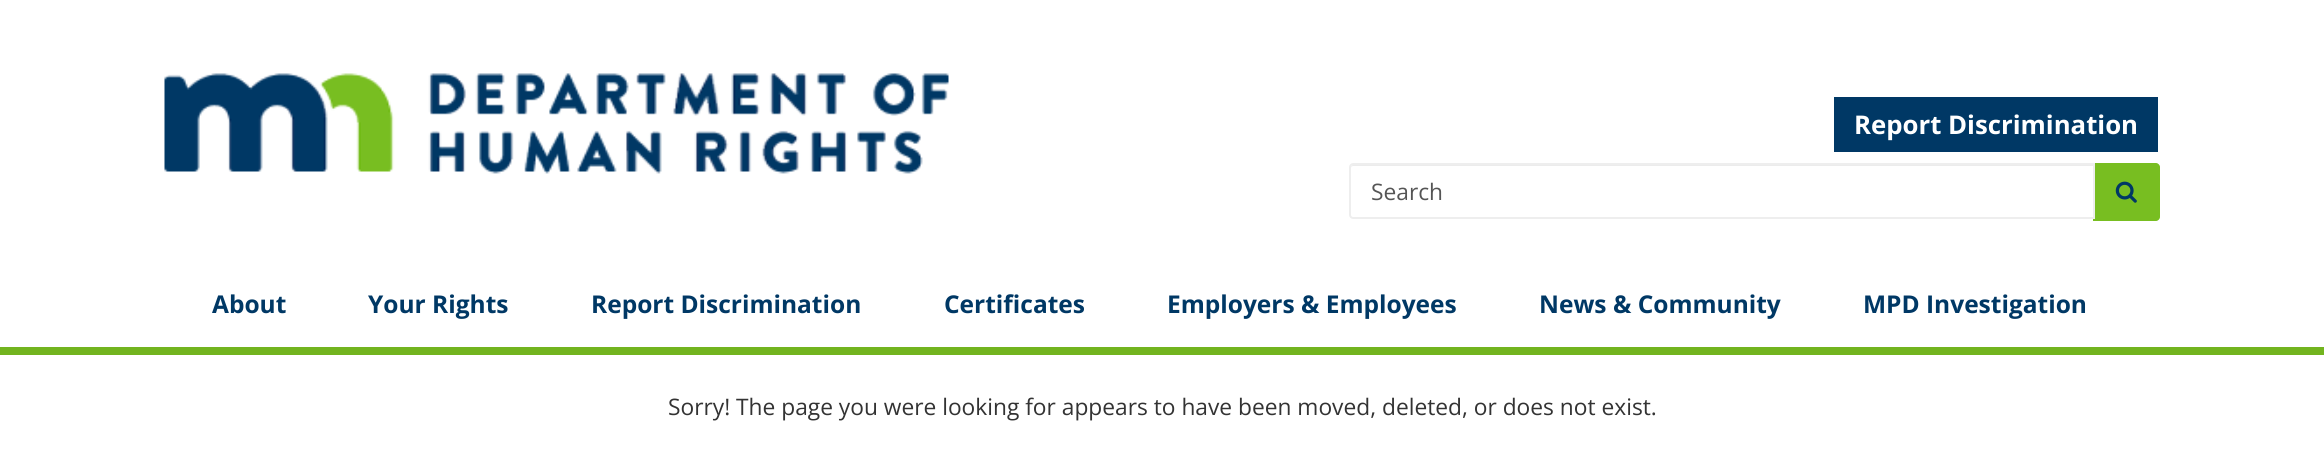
import math
import cairo



def rounded_rect(context, x, y, w, h, r):
    context.new_sub_path()
    for i, (u, v) in enumerate([(x + w - r, y + h - r), (x + r, y + h - r), (x + r, y + r), (x + w - r, y + r)]):
        context.arc(u, v, r, i * math.pi / 2, (i + 1) * math.pi / 2)
    context.close_path()


def draw_image(context, path, x, y, w, h):
    context.save()
    context.set_source_surface(cairo.ImageSurface.create_from_png(path), x, y)
    context.rectangle(x, y, w, h)
    context.fill()
    context.restore()


def draw(context):
    context.set_source_rgb(1, 1, 1)
    context.paint()
    draw_image(context, "images/1.png", 164, 73, 785, 101)
    context.set_source_rgb(0, 56 / 255, 101 / 255)
    rounded_rect(context, 1833, 96, 326, 57, 1)
    context.fill_preserve()
    context.set_source_rgb(1, 1, 1)
    context.stroke()
    context.set_source_rgb(120 / 255, 190 / 255, 33 / 255)
    context.new_path()
    context.move_to(2093, 163)
    context.line_to(2156, 163)
    context.curve_to(2158, 163, 2160, 165, 2160, 167)
    context.line_to(2160, 217)
    context.curve_to(2160, 219, 2158, 221, 2156, 221)
    context.line_to(2093, 221)
    context.close_path()
    context.fill()
    context.set_source_rgb(1, 1, 1)
    context.new_path()
    context.move_to(1353, 163)
    context.line_to(2095, 163)
    context.line_to(2095, 219)
    context.line_to(1353, 219)
    context.curve_to(1351, 219, 1349, 217, 1349, 215)
    context.line_to(1349, 167)
    context.curve_to(1349, 165, 1351, 163, 1353, 163)
    context.close_path()
    context.fill()
    context.set_source_rgb(236 / 255, 236 / 255, 236 / 255)
    context.new_path()
    context.move_to(1353, 166)
    context.line_to(2093, 166)
    context.line_to(2093, 165)
    context.line_to(1353, 165)
    context.curve_to(1351, 165, 1351, 167, 1351, 168)
    context.curve_to(1351, 167, 1352, 166, 1353, 166)
    context.close_path()
    context.fill()
    context.new_path()
    context.move_to(1353, 164)
    context.line_to(2094, 164)
    context.line_to(2094, 218)
    context.line_to(1353, 218)
    context.curve_to(1351.5, 218, 1350, 216.5, 1350, 215)
    context.line_to(1350, 167)
    context.curve_to(1350, 165.5, 1351.5, 164, 1353, 164)
    context.close_path()
    context.set_source_rgb(238 / 255, 238 / 255, 238 / 255)
    context.stroke()
    draw_image(context, "images/2.png", 2115, 181, 22, 22)
    context.set_source_rgb(114 / 255, 180 / 255, 31 / 255)
    context.rectangle(0, 347, 2324, 8)
    context.fill()
    context.select_font_face("Open Sans", cairo.FontSlant.NORMAL, cairo.FontWeight.BOLD)
    context.set_font_size(25.75)
    context.set_source_rgb(1, 1, 1)
    context.move_to(1854, 134)
    context.show_text("Report Discrimination")
    context.select_font_face("Open Sans")
    context.set_font_size(22.75)
    context.set_source_rgb(85 / 255, 85 / 255, 85 / 255)
    context.move_to(1371, 200)
    context.show_text("Search")
    context.select_font_face("Open Sans", cairo.FontSlant.NORMAL, cairo.FontWeight.BOLD)
    context.set_font_size(24.5)
    context.set_source_rgb(0, 56 / 255, 101 / 255)
    context.move_to(212, 313)
    context.show_text("About")
    context.move_to(368, 313)
    context.show_text("Your Rights")
    context.move_to(591, 313)
    context.show_text("Report Discrimination")
    context.move_to(944, 313)
    context.show_text("Certificates")
    context.move_to(1167, 313)
    context.show_text("Employers & Employees")
    context.move_to(1539, 313)
    context.show_text("News & Community")
    context.move_to(1863, 313)
    context.show_text("MPD Investigation")
    context.select_font_face("Open Sans")
    context.set_font_size(22.75)
    context.set_source_rgb(51 / 255, 51 / 255, 51 / 255)
    context.move_to(668, 415)
    context.show_text("Sorry! The page you were looking for appears to have been moved, deleted, or does not exist.")


surface = cairo.ImageSurface(cairo.Format.RGB24, 2324, 471)
context = cairo.Context(surface)
options = cairo.FontOptions()
options.set_hint_metrics(cairo.HintMetrics.OFF)
options.set_hint_style(cairo.HintStyle.NONE)
context.set_font_options(options)
context.set_miter_limit(4)
draw(context)
surface.write_to_png("out.png")
